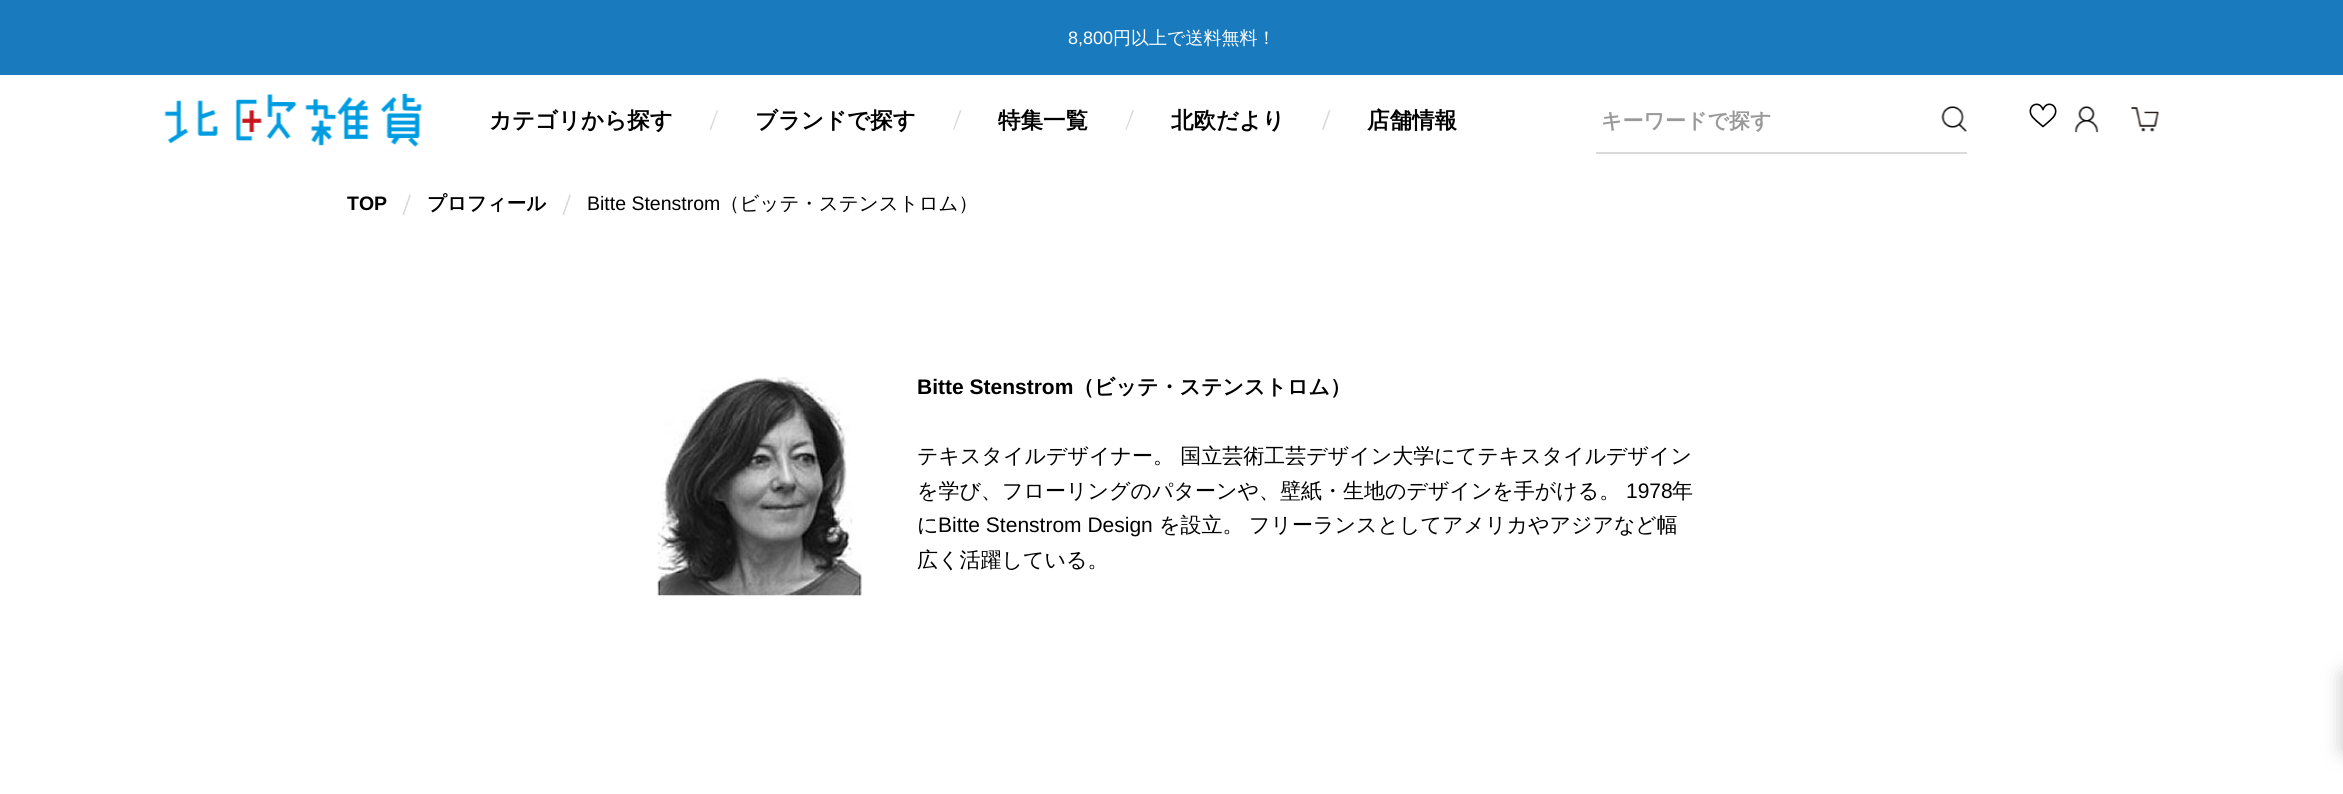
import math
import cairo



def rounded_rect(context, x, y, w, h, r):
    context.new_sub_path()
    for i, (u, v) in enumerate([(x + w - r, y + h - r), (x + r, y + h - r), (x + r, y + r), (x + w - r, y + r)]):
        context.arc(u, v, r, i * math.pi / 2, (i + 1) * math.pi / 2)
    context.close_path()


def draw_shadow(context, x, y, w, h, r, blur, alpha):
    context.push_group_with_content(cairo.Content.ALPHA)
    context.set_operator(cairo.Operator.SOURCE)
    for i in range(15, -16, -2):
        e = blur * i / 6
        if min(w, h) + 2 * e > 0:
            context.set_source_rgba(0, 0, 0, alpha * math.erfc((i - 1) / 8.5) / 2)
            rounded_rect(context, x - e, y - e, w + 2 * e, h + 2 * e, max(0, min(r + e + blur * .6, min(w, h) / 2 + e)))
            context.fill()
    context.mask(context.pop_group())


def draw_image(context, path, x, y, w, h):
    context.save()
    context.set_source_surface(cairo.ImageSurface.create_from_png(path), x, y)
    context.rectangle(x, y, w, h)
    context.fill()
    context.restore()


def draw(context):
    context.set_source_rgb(1, 1, 1)
    context.paint()
    context.set_source_rgb(25 / 255, 123 / 255, 189 / 255)
    context.rectangle(0, 0, 2343, 75)
    context.fill()
    draw_image(context, "images/1.png", 164, 93, 258, 54)
    draw_image(context, "images/2.png", 2029, 103, 28, 25)
    draw_image(context, "images/3.png", 2074, 106, 25, 27)
    draw_image(context, "images/4.png", 2131, 107, 28, 25)
    context.set_source_rgb(217 / 255, 217 / 255, 217 / 255)
    context.new_path()
    context.move_to(717, 110)
    context.line_to(718, 110.5)
    context.line_to(711, 130)
    context.line_to(709.5, 129.5)
    context.close_path()
    context.fill()
    context.new_path()
    context.move_to(960, 110)
    context.line_to(961.5, 110.5)
    context.line_to(954, 130)
    context.line_to(953, 129.5)
    context.close_path()
    context.fill()
    context.new_path()
    context.move_to(1132.5, 110)
    context.line_to(1134, 110.5)
    context.line_to(1126.5, 130)
    context.line_to(1125.5, 129.5)
    context.close_path()
    context.fill()
    context.new_path()
    context.move_to(1329, 110)
    context.line_to(1330.5, 110.5)
    context.line_to(1323.5, 130)
    context.line_to(1322, 129.5)
    context.close_path()
    context.fill()
    draw_image(context, "images/5.png", 1941, 106, 26, 26)
    context.set_source_rgb(218 / 255, 218 / 255, 218 / 255)
    context.rectangle(1596, 152, 371, 2)
    context.fill()
    context.set_source_rgb(217 / 255, 217 / 255, 217 / 255)
    context.new_path()
    context.move_to(409.5, 194.5)
    context.line_to(411, 195)
    context.line_to(404, 215)
    context.line_to(402.5, 214.5)
    context.close_path()
    context.fill()
    context.new_path()
    context.move_to(569.5, 194.5)
    context.line_to(571, 195)
    context.line_to(564, 215)
    context.line_to(562.5, 214.5)
    context.close_path()
    context.fill()
    draw_image(context, "images/6.png", 657, 377, 205, 219)
    context.set_source_rgb(117 / 255, 117 / 255, 117 / 255)
    draw_shadow(context, 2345, 675, 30, 75, 0, 10.5, 0.5)
    context.select_font_face("Liberation Sans")
    context.set_font_size(18)
    context.set_source_rgb(1, 1, 1)
    context.move_to(1068, 44)
    context.show_text("8,800")
    context.select_font_face("WenQuanYi Zen Hei Medium")
    context.move_to(1113, 44)
    context.show_text("円以上で送料無料！")
    context.select_font_face("WenQuanYi Zen Hei", cairo.FontSlant.NORMAL, cairo.FontWeight.BOLD)
    context.set_font_size(22.5)
    context.set_source_rgb(0, 0, 0)
    context.move_to(489, 128)
    context.show_text("カテゴリから探す")
    context.move_to(755, 128)
    context.show_text("ブランドで探す")
    context.move_to(998, 128)
    context.show_text("特集一覧")
    context.move_to(1171, 128)
    context.show_text("北欧だより")
    context.move_to(1367, 128)
    context.show_text("店舗情報")
    context.set_font_size(21)
    context.set_source_rgb(153 / 255, 153 / 255, 153 / 255)
    context.move_to(1601, 128)
    context.show_text("キーワードで探す")
    context.select_font_face("Liberation Sans", cairo.FontSlant.NORMAL, cairo.FontWeight.BOLD)
    context.set_font_size(19.5)
    context.set_source_rgb(0, 0, 0)
    context.move_to(347, 210)
    context.show_text("TOP")
    context.select_font_face("WenQuanYi Zen Hei", cairo.FontSlant.NORMAL, cairo.FontWeight.BOLD)
    context.move_to(427, 210)
    context.show_text("プロフィール")
    context.select_font_face("Liberation Sans")
    context.move_to(587, 210)
    context.show_text("Bitte Stenstrom")
    context.select_font_face("WenQuanYi Zen Hei Medium")
    context.move_to(720, 210)
    context.show_text("（ビッテ・ステンストロム）")
    context.select_font_face("Liberation Sans", cairo.FontSlant.NORMAL, cairo.FontWeight.BOLD)
    context.set_font_size(21)
    context.move_to(917, 394)
    context.show_text("Bitte Stenstrom")
    context.select_font_face("WenQuanYi Zen Hei", cairo.FontSlant.NORMAL, cairo.FontWeight.BOLD)
    context.move_to(1073, 394)
    context.show_text("（ビッテ・ステンストロム）")
    context.select_font_face("WenQuanYi Zen Hei Medium")
    context.move_to(917, 463)
    context.show_text("テキスタイルデザイナー。 国立芸術工芸デザイン大学にてテキスタイルデザイン")
    context.move_to(917, 498)
    context.show_text("を学び、フローリングのパターンや、壁紙・生地のデザインを手がける。")
    context.select_font_face("Liberation Sans")
    context.move_to(1626, 498)
    context.show_text("1978")
    context.select_font_face("WenQuanYi Zen Hei Medium")
    context.move_to(1672, 498)
    context.show_text("年")
    context.move_to(917, 532)
    context.show_text("に")
    context.select_font_face("Liberation Sans")
    context.move_to(938, 532)
    context.show_text("Bitte Stenstrom Design")
    context.select_font_face("WenQuanYi Zen Hei Medium")
    context.move_to(1159, 532)
    context.show_text("を設立。")
    context.move_to(1249, 532)
    context.show_text("フリーランスとしてアメリカやアジアなど幅")
    context.move_to(917, 567)
    context.show_text("広く活躍している。")


surface = cairo.ImageSurface(cairo.Format.RGB24, 2343, 794)
context = cairo.Context(surface)
options = cairo.FontOptions()
options.set_hint_metrics(cairo.HintMetrics.OFF)
options.set_hint_style(cairo.HintStyle.NONE)
context.set_font_options(options)
context.set_miter_limit(4)
draw(context)
surface.write_to_png("out.png")
